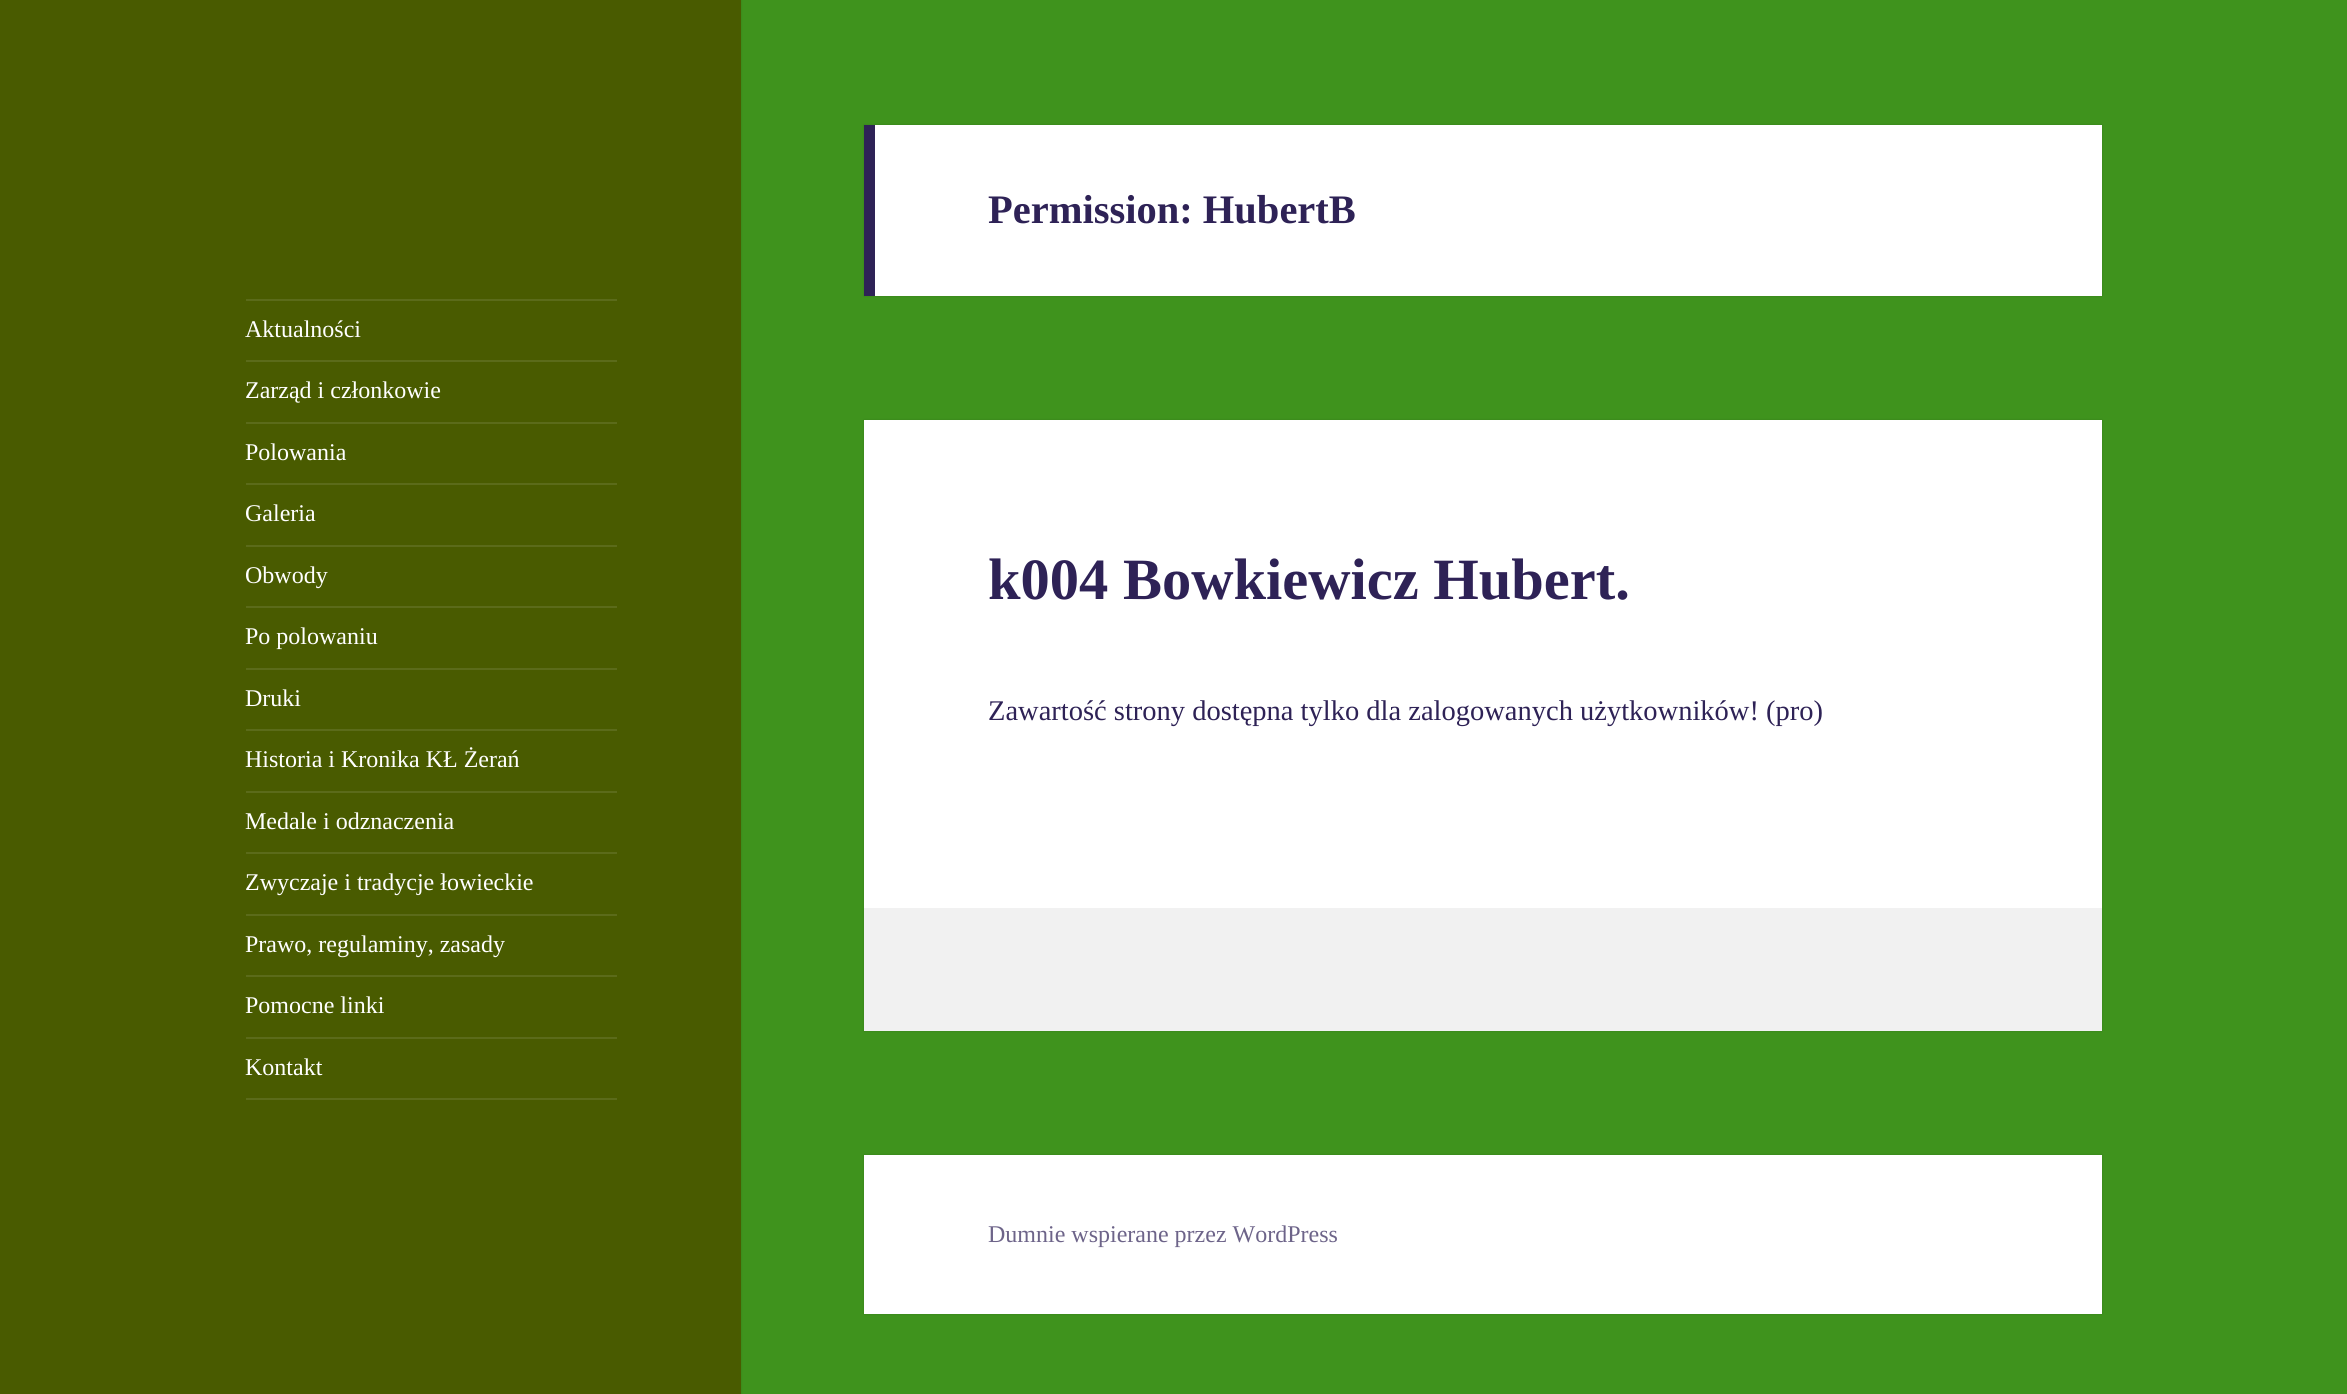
import math
import cairo



def rounded_rect(context, x, y, w, h, r):
    context.new_sub_path()
    for i, (u, v) in enumerate([(x + w - r, y + h - r), (x + r, y + h - r), (x + r, y + r), (x + w - r, y + r)]):
        context.arc(u, v, r, i * math.pi / 2, (i + 1) * math.pi / 2)
    context.close_path()


def draw_shadow(context, x, y, w, h, r, blur, alpha):
    context.push_group_with_content(cairo.Content.ALPHA)
    context.set_operator(cairo.Operator.SOURCE)
    for i in range(15, -16, -2):
        e = blur * i / 6
        if min(w, h) + 2 * e > 0:
            context.set_source_rgba(0, 0, 0, alpha * math.erfc((i - 1) / 8.5) / 2)
            rounded_rect(context, x - e, y - e, w + 2 * e, h + 2 * e, max(0, min(r + e + blur * .6, min(w, h) / 2 + e)))
            context.fill()
    context.mask(context.pop_group())


def draw(context):
    context.set_source_rgb(63 / 255, 147 / 255, 29 / 255)
    context.paint()
    context.set_source_rgb(0, 0, 0)
    draw_shadow(context, 0, 0, 741, 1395, 0, 1, 0.15)
    context.set_source_rgb(73 / 255, 91 / 255, 0)
    context.rectangle(0, 0, 741, 1394)
    context.fill()
    context.set_source_rgb(91 / 255, 107 / 255, 26 / 255)
    context.rectangle(246, 299, 371, 2)
    context.fill()
    context.rectangle(246, 1098, 371, 2)
    context.fill()
    context.rectangle(246, 360, 371, 2)
    context.fill()
    context.rectangle(246, 422, 371, 2)
    context.fill()
    context.rectangle(246, 483, 371, 2)
    context.fill()
    context.rectangle(246, 545, 371, 2)
    context.fill()
    context.rectangle(246, 606, 371, 2)
    context.fill()
    context.rectangle(246, 668, 371, 2)
    context.fill()
    context.rectangle(246, 729, 371, 2)
    context.fill()
    context.rectangle(246, 791, 371, 2)
    context.fill()
    context.rectangle(246, 852, 371, 2)
    context.fill()
    context.rectangle(246, 914, 371, 2)
    context.fill()
    context.rectangle(246, 975, 371, 2)
    context.fill()
    context.rectangle(246, 1037, 371, 2)
    context.fill()
    context.set_source_rgb(0, 0, 0)
    draw_shadow(context, 864, 125, 1238, 171, 0, 1, 0.15)
    context.set_source_rgb(1, 1, 1)
    context.rectangle(875, 125, 1227, 171)
    context.fill()
    context.set_source_rgb(46 / 255, 34 / 255, 86 / 255)
    context.rectangle(864, 125, 11, 171)
    context.fill()
    context.set_source_rgb(0, 0, 0)
    draw_shadow(context, 864, 420, 1238, 611, 0, 1, 0.15)
    context.set_source_rgb(1, 1, 1)
    context.rectangle(864, 420, 1238, 488)
    context.fill()
    context.set_source_rgb(241 / 255, 241 / 255, 241 / 255)
    context.rectangle(864, 908, 1238, 123)
    context.fill()
    context.set_source_rgb(0, 0, 0)
    draw_shadow(context, 864, 1155, 1238, 159, 0, 1, 0.15)
    context.set_source_rgb(1, 1, 1)
    context.rectangle(864, 1155, 1238, 159)
    context.fill()
    context.select_font_face("Liberation Serif")
    context.set_font_size(24)
    context.move_to(245, 337)
    context.show_text("Aktualności")
    context.move_to(245, 398)
    context.show_text("Zarząd i członkowie")
    context.move_to(245, 460)
    context.show_text("Polowania")
    context.move_to(245, 521)
    context.show_text("Galeria")
    context.move_to(245, 583)
    context.show_text("Obwody")
    context.move_to(245, 644)
    context.show_text("Po polowaniu")
    context.move_to(245, 706)
    context.show_text("Druki")
    context.move_to(245, 767)
    context.show_text("Historia i Kronika KŁ Żerań")
    context.move_to(245, 829)
    context.show_text("Medale i odznaczenia")
    context.move_to(245, 890)
    context.show_text("Zwyczaje i tradycje łowieckie")
    context.move_to(245, 952)
    context.show_text("Prawo, regulaminy, zasady")
    context.move_to(245, 1013)
    context.show_text("Pomocne linki")
    context.move_to(245, 1075)
    context.show_text("Kontakt")
    context.select_font_face("Liberation Serif", cairo.FontSlant.NORMAL, cairo.FontWeight.BOLD)
    context.set_font_size(40.5)
    context.set_source_rgb(46 / 255, 34 / 255, 86 / 255)
    context.move_to(988, 223)
    context.show_text("Permission: HubertB")
    context.set_font_size(58.5)
    context.move_to(988, 599)
    context.show_text("k004 Bowkiewicz Hubert.")
    context.select_font_face("Liberation Serif")
    context.set_font_size(28.5)
    context.move_to(988, 720)
    context.show_text("Zawartość strony dostępna tylko dla zalogowanych użytkowników! (pro)")
    context.set_font_size(24)
    context.set_source_rgb(109 / 255, 100 / 255, 137 / 255)
    context.move_to(988, 1242)
    context.show_text("Dumnie wspierane przez WordPress")


surface = cairo.ImageSurface(cairo.Format.RGB24, 2347, 1394)
context = cairo.Context(surface)
options = cairo.FontOptions()
options.set_hint_metrics(cairo.HintMetrics.OFF)
options.set_hint_style(cairo.HintStyle.NONE)
context.set_font_options(options)
context.set_miter_limit(4)
draw(context)
surface.write_to_png("out.png")
